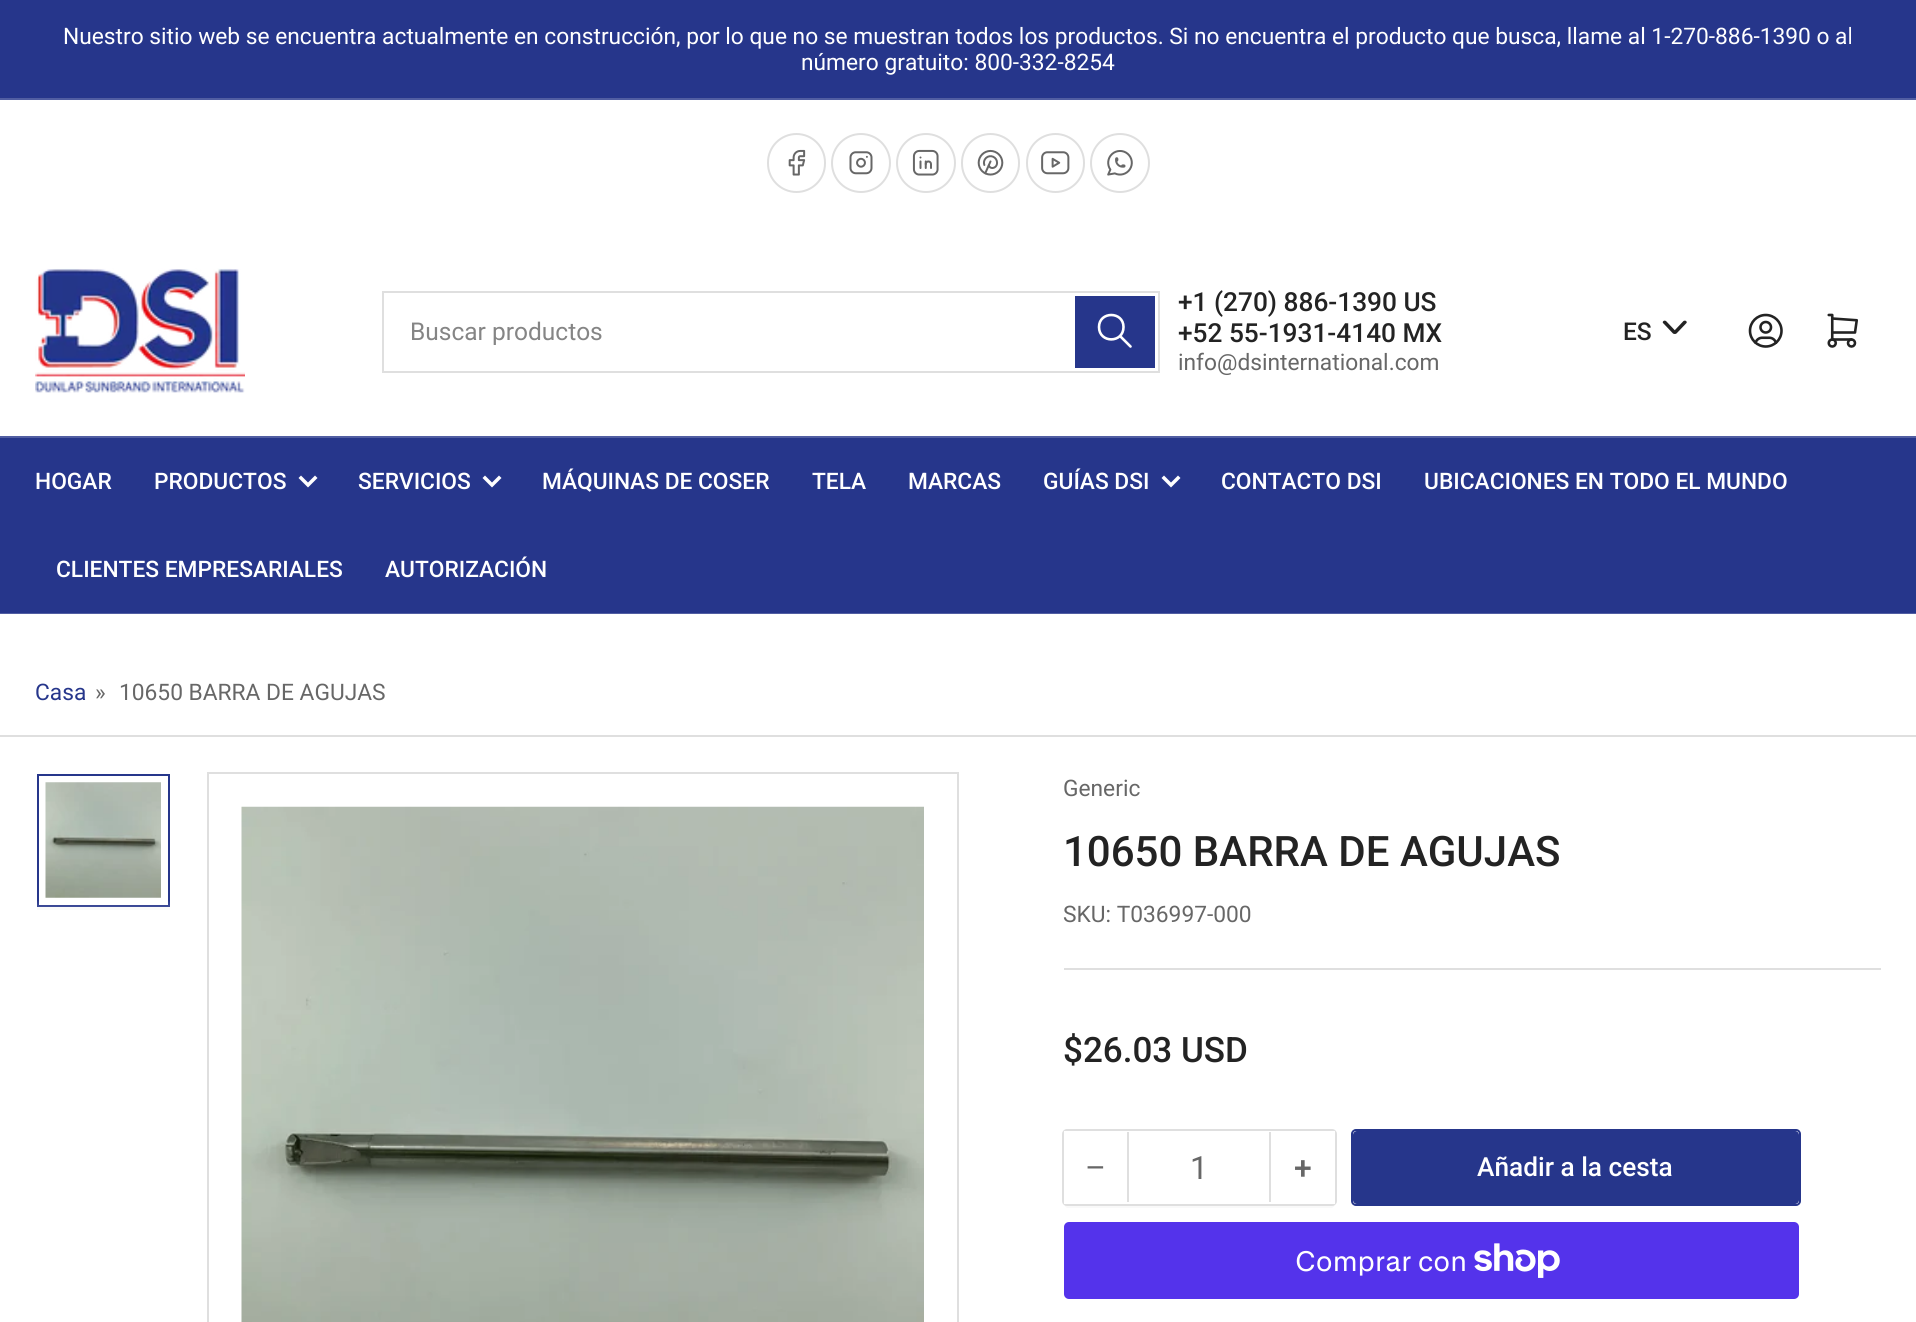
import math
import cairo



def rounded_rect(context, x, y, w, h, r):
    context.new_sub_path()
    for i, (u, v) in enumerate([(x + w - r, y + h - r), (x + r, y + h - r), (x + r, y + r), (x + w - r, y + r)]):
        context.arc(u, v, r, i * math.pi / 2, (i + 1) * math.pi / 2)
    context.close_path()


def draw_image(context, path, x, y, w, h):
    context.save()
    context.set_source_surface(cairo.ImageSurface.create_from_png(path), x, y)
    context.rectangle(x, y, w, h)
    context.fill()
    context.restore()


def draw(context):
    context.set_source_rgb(1, 1, 1)
    context.paint()
    context.set_source_rgb(38 / 255, 54 / 255, 139 / 255)
    context.rectangle(0, 0, 1916, 98)
    context.fill()
    context.set_source_rgb(81 / 255, 94 / 255, 162 / 255)
    context.rectangle(0, 98, 1916, 2)
    context.fill()
    rounded_rect(context, 768, 134, 57, 58, 28.5)
    context.set_source_rgb(223 / 255, 223 / 255, 223 / 255)
    context.stroke()
    draw_image(context, "images/1.png", 788, 149, 18, 27)
    context.arc(861, 163, 29, 0, 2 * math.pi)
    context.stroke()
    draw_image(context, "images/2.png", 849, 151, 24, 24)
    context.arc(926, 163, 29, 0, 2 * math.pi)
    context.stroke()
    draw_image(context, "images/3.png", 912, 149, 27, 27)
    rounded_rect(context, 962, 134, 57, 58, 28.5)
    context.stroke()
    draw_image(context, "images/4.png", 977, 149, 27, 27)
    rounded_rect(context, 1027, 134, 57, 58, 28.5)
    context.stroke()
    draw_image(context, "images/5.png", 1041, 151, 29, 24)
    context.arc(1120, 163, 29, 0, 2 * math.pi)
    context.stroke()
    draw_image(context, "images/6.png", 1107, 150, 26, 26)
    draw_image(context, "images/7.png", 35, 268, 210, 125)
    context.rectangle(383, 292, 776, 80)
    context.stroke()
    context.rectangle(1076, 297, 78, 70)
    context.set_source_rgb(38 / 255, 54 / 255, 139 / 255)
    context.stroke()
    context.rectangle(1077, 298, 76, 68)
    context.fill()
    context.new_path()
    context.move_to(1099, 327)
    context.curve_to(1099, 343.5, 1123.5, 343.5, 1123.5, 327)
    context.curve_to(1123.5, 311, 1099, 311, 1099, 327)
    context.move_to(1130.5, 346.5)
    context.line_to(1120, 336)
    context.set_source_rgb(1, 1, 1)
    context.set_line_width(2.6)
    context.set_line_cap(cairo.LineCap.ROUND)
    context.set_line_join(cairo.LineJoin.ROUND)
    context.stroke()
    context.set_source_rgb(35 / 255, 35 / 255, 35 / 255)
    context.new_path()
    context.move_to(1666, 321)
    context.line_to(1675.5, 331)
    context.curve_to(1676.5, 331.5, 1676.5, 333, 1675.5, 333.5)
    context.curve_to(1675, 334, 1674, 334, 1673, 333.5)
    context.line_to(1663.5, 323.5)
    context.curve_to(1662.5, 323, 1662.5, 321.5, 1663.5, 321)
    context.curve_to(1664, 320.5, 1665, 320.5, 1666, 321)
    context.close_path()
    context.fill()
    context.new_path()
    context.move_to(1674, 331)
    context.line_to(1683.5, 321)
    context.curve_to(1684.5, 320.5, 1685.5, 320.5, 1686, 321)
    context.curve_to(1687, 321.5, 1687, 323, 1686, 323.5)
    context.line_to(1676.5, 333.5)
    context.curve_to(1675.5, 334, 1674.5, 334, 1674, 333.5)
    context.curve_to(1673, 333, 1673, 331.5, 1674, 331)
    context.close_path()
    context.fill()
    draw_image(context, "images/8.png", 1748, 313, 35, 35)
    draw_image(context, "images/9.png", 1827, 313, 31, 35)
    context.set_source_rgb(38 / 255, 54 / 255, 139 / 255)
    context.rectangle(0, 438, 1916, 175)
    context.fill()
    context.set_source_rgb(81 / 255, 94 / 255, 162 / 255)
    context.rectangle(0, 613, 1916, 1)
    context.fill()
    context.rectangle(0, 436, 1916, 2)
    context.fill()
    context.new_path()
    context.move_to(315, 478)
    context.line_to(308, 485)
    context.line_to(301, 478)
    context.set_source_rgb(1, 1, 1)
    context.set_line_width(3.5)
    context.set_line_cap(cairo.LineCap.SQUARE)
    context.set_line_join(cairo.LineJoin.MITER)
    context.stroke()
    context.new_path()
    context.move_to(499, 478)
    context.line_to(492, 485)
    context.line_to(485, 478)
    context.stroke()
    context.new_path()
    context.move_to(1178, 478)
    context.line_to(1171, 485)
    context.line_to(1164, 478)
    context.stroke()
    context.set_source_rgb(223 / 255, 223 / 255, 223 / 255)
    context.rectangle(0, 735, 1916, 2)
    context.fill()
    context.set_source_rgb(249 / 255, 249 / 255, 249 / 255)
    context.new_path()
    context.move_to(37, 906)
    context.line_to(37, 910)
    context.line_to(170, 910)
    context.line_to(170, 777)
    context.line_to(170, 906)
    context.close_path()
    context.fill()
    context.rectangle(38, 775, 131, 131)
    context.set_source_rgb(38 / 255, 54 / 255, 139 / 255)
    context.set_line_width(2)
    context.set_line_cap(cairo.LineCap.BUTT)
    context.stroke()
    draw_image(context, "images/10.png", 45, 782, 116, 116)
    gradient = cairo.LinearGradient(103, 961, 103, 900)
    gradient.add_color_stop_rgba(0, 1, 1, 1, 1)
    gradient.add_color_stop_rgba(1, 1, 1, 1, 0)
    context.set_source(gradient)
    context.rectangle(37, 901, 133, 6)
    context.fill()
    context.rectangle(208, 773, 750, 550)
    context.set_source_rgb(223 / 255, 223 / 255, 223 / 255)
    context.stroke()
    draw_image(context, "images/11.png", 241, 806, 683, 516)
    context.rectangle(1064, 968, 817, 2)
    context.fill()
    context.set_source_rgb(249 / 255, 249 / 255, 249 / 255)
    context.new_path()
    context.move_to(1064, 1200)
    context.line_to(1064, 1204)
    context.curve_to(1064, 1206, 1066, 1208, 1068, 1208)
    context.line_to(1331, 1208)
    context.curve_to(1333, 1208, 1335, 1206, 1335, 1204)
    context.line_to(1335, 1202)
    context.curve_to(1334, 1203, 1333, 1204, 1332, 1204)
    context.line_to(1068, 1204)
    context.curve_to(1066, 1204, 1064, 1202, 1064, 1200)
    context.close_path()
    context.fill()
    rounded_rect(context, 1063, 1130, 273, 75, 4)
    context.set_source_rgb(223 / 255, 223 / 255, 223 / 255)
    context.stroke()
    context.set_source_rgb(1, 1, 1)
    context.rectangle(1064, 1131, 3, 73)
    context.fill()
    context.set_source_rgb(223 / 255, 223 / 255, 223 / 255)
    context.rectangle(1269, 1132, 2, 70)
    context.fill()
    context.rectangle(1127, 1132, 2, 70)
    context.fill()
    context.set_source_rgb(1, 1, 1)
    context.rectangle(1332, 1131, 3, 73)
    context.fill()
    rounded_rect(context, 1352, 1130, 448, 75, 4)
    context.set_source_rgb(38 / 255, 54 / 255, 139 / 255)
    context.stroke()
    rounded_rect(context, 1353, 1131, 446, 73, 4)
    context.fill()
    context.set_source_rgb(84 / 255, 51 / 255, 235 / 255)
    rounded_rect(context, 1064, 1222, 735, 77, 5)
    context.fill()
    draw_image(context, "images/12.png", 1474, 1243, 86, 35)
    context.select_font_face("Roboto")
    context.set_font_size(22.75)
    context.set_source_rgb(1, 1, 1)
    context.move_to(63, 44)
    context.show_text("Nuestro sitio web se encuentra actualmente en construcción, por lo que no se muestran todos los productos. Si no encuentra el producto que busca, llame al 1-270-886-1390 o al")
    context.move_to(801, 70)
    context.show_text("número gratuito: 800-332-8254")
    context.set_font_size(24.5)
    context.set_source_rgb(133 / 255, 133 / 255, 133 / 255)
    context.move_to(410, 340)
    context.show_text("Buscar productos")
    context.select_font_face("Roboto Medium")
    context.set_font_size(26.25)
    context.set_source_rgb(35 / 255, 35 / 255, 35 / 255)
    context.move_to(1178, 311)
    context.show_text("+1 (270) 886-1390 US")
    context.move_to(1178, 342)
    context.show_text("+52 55-1931-4140 MX")
    context.select_font_face("Roboto")
    context.set_font_size(22.75)
    context.set_source_rgb(103 / 255, 103 / 255, 103 / 255)
    context.move_to(1178, 370)
    context.show_text("info@dsinternational.com")
    context.select_font_face("Roboto Medium")
    context.set_font_size(24.5)
    context.set_source_rgb(35 / 255, 35 / 255, 35 / 255)
    context.move_to(1623, 340)
    context.show_text("ES")
    context.set_font_size(22.75)
    context.set_source_rgb(1, 1, 1)
    context.move_to(35, 489)
    context.show_text("HOGAR")
    context.move_to(154, 489)
    context.show_text("PRODUCTOS")
    context.move_to(358, 489)
    context.show_text("SERVICIOS")
    context.move_to(542, 489)
    context.show_text("MÁQUINAS DE COSER")
    context.move_to(812, 489)
    context.show_text("TELA")
    context.move_to(908, 489)
    context.show_text("MARCAS")
    context.move_to(1043, 489)
    context.show_text("GUÍAS DSI")
    context.move_to(1221, 489)
    context.show_text("CONTACTO DSI")
    context.move_to(1424, 489)
    context.show_text("UBICACIONES EN TODO EL MUNDO")
    context.move_to(56, 577)
    context.show_text("CLIENTES EMPRESARIALES")
    context.move_to(385, 577)
    context.show_text("AUTORIZACIÓN")
    context.select_font_face("Roboto")
    context.set_source_rgb(38 / 255, 54 / 255, 139 / 255)
    context.move_to(35, 700)
    context.show_text("Casa")
    context.set_source_rgb(103 / 255, 103 / 255, 103 / 255)
    context.move_to(95, 700)
    context.show_text("»")
    context.move_to(119, 700)
    context.show_text("10650 BARRA DE AGUJAS")
    context.move_to(1063, 796)
    context.show_text("Generic")
    context.select_font_face("Roboto Medium")
    context.set_font_size(42)
    context.set_source_rgb(35 / 255, 35 / 255, 35 / 255)
    context.move_to(1063, 866)
    context.show_text("10650 BARRA DE AGUJAS")
    context.select_font_face("Roboto")
    context.set_font_size(22.75)
    context.set_source_rgb(103 / 255, 103 / 255, 103 / 255)
    context.move_to(1063, 922)
    context.show_text("SKU: T036997-000")
    context.select_font_face("Roboto Medium")
    context.set_font_size(35)
    context.set_source_rgb(35 / 255, 35 / 255, 35 / 255)
    context.move_to(1063, 1062)
    context.show_text("$26.03 USD")
    context.select_font_face("Liberation Sans")
    context.set_font_size(32)
    context.set_source_rgb(103 / 255, 103 / 255, 103 / 255)
    context.move_to(1086, 1178)
    context.show_text("−")
    context.select_font_face("Roboto")
    context.move_to(1190, 1179)
    context.show_text("1")
    context.select_font_face("Roboto Medium")
    context.move_to(1294, 1179)
    context.show_text("+")
    context.set_font_size(26.25)
    context.set_source_rgb(1, 1, 1)
    context.move_to(1477, 1176)
    context.show_text("Añadir a la cesta")
    context.select_font_face("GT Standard")
    context.set_font_size(28)
    context.move_to(1295, 1271)
    context.show_text("Comprar con")


surface = cairo.ImageSurface(cairo.Format.RGB24, 1916, 1322)
context = cairo.Context(surface)
options = cairo.FontOptions()
options.set_hint_metrics(cairo.HintMetrics.OFF)
options.set_hint_style(cairo.HintStyle.NONE)
context.set_font_options(options)
context.set_miter_limit(4)
draw(context)
surface.write_to_png("out.png")
